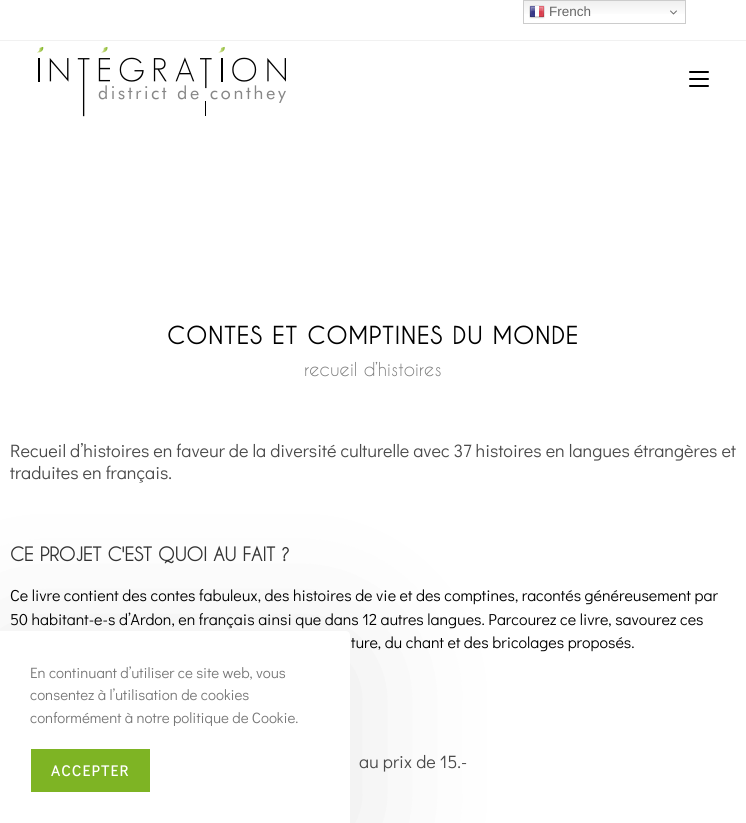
import math
import cairo



def draw_spaced(context, x, y, s, letter, word):
    context.move_to(x, y)
    for ch in s:
        context.show_text(ch)
        context.rel_move_to(letter + word * (ch == ' '), 0)


def rounded_rect(context, x, y, w, h, r):
    context.new_sub_path()
    for i, (u, v) in enumerate([(x + w - r, y + h - r), (x + r, y + h - r), (x + r, y + r), (x + w - r, y + r)]):
        context.arc(u, v, r, i * math.pi / 2, (i + 1) * math.pi / 2)
    context.close_path()


def draw_shadow(context, x, y, w, h, r, blur, alpha):
    context.push_group_with_content(cairo.Content.ALPHA)
    context.set_operator(cairo.Operator.SOURCE)
    for i in range(15, -16, -2):
        e = blur * i / 6
        if min(w, h) + 2 * e > 0:
            context.set_source_rgba(0, 0, 0, alpha * math.erfc((i - 1) / 8.5) / 2)
            rounded_rect(context, x - e, y - e, w + 2 * e, h + 2 * e, max(0, min(r + e + blur * .6, min(w, h) / 2 + e)))
            context.fill()
    context.mask(context.pop_group())


def draw_image(context, path, x, y, w, h):
    context.save()
    context.set_source_surface(cairo.ImageSurface.create_from_png(path), x, y)
    context.rectangle(x, y, w, h)
    context.fill()
    context.restore()


def draw(context):
    context.set_source_rgb(1, 1, 1)
    context.paint()
    gradient = cairo.LinearGradient(605, 0, 605, 24)
    gradient.add_color_stop_rgba(0, 239 / 255, 239 / 255, 239 / 255, 1)
    gradient.add_color_stop_rgba(0.7, 1, 1, 1, 1)
    context.set_source(gradient)
    context.rectangle(524, 1, 161, 13)
    context.fill()
    context.rectangle(523.5, 0.5, 162, 23)
    context.set_source_rgb(204 / 255, 204 / 255, 204 / 255)
    context.set_line_width(1)
    context.stroke()
    draw_image(context, "images/1.png", 529, 5, 16, 14)
    draw_image(context, "images/2.png", 670, 10, 7, 5)
    context.set_source_rgb(241 / 255, 241 / 255, 241 / 255)
    context.rectangle(0, 40, 746, 1)
    context.fill()
    draw_image(context, "images/3.png", 37, 46, 249, 71)
    context.set_source_rgb(0, 0, 0)
    rounded_rect(context, 689, 85, 20, 2, 1)
    context.fill()
    rounded_rect(context, 689, 71, 20, 2, 1)
    context.fill()
    rounded_rect(context, 689, 78, 20, 2, 1)
    context.fill()
    context.set_source_rgb(0, 0, 0)
    draw_shadow(context, 0, 651, 350, 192, 4, 75, 0.1)
    context.set_source_rgb(1, 1, 1)
    context.new_path()
    context.move_to(0, 631)
    context.line_to(346, 631)
    context.curve_to(348, 631, 350, 633, 350, 635)
    context.line_to(350, 823)
    context.line_to(0, 823)
    context.close_path()
    context.fill()
    context.set_source_rgb(126 / 255, 180 / 255, 36 / 255)
    context.rectangle(31, 749, 119, 43)
    context.fill()
    context.select_font_face("Liberation Sans")
    context.set_font_size(13.5)
    context.set_source_rgb(102 / 255, 102 / 255, 102 / 255)
    context.move_to(549, 16)
    context.show_text("French")
    context.select_font_face("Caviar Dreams", cairo.FontSlant.NORMAL, cairo.FontWeight.BOLD)
    context.set_font_size(22.5)
    context.set_source_rgb(0, 0, 0)
    draw_spaced(context, 167, 344, "CONTES ET COMPTINES DU MONDE", 1.5, 0)
    context.select_font_face("Caviar Dreams Light")
    context.set_font_size(18)
    context.set_source_rgb(125 / 255, 125 / 255, 125 / 255)
    context.move_to(304, 376)
    context.show_text("recueil d’histoires")
    context.select_font_face("Didact Gothic")
    context.set_source_rgb(74 / 255, 74 / 255, 74 / 255)
    context.move_to(10, 457)
    context.show_text("Recueil d’histoires en faveur de la diversité culturelle avec 37 histoires en langues étrangères et")
    context.move_to(10, 479)
    context.show_text("traduites en français.")
    context.select_font_face("Caviar Dreams", cairo.FontSlant.NORMAL, cairo.FontWeight.BOLD)
    context.set_source_rgb(51 / 255, 51 / 255, 51 / 255)
    context.move_to(10, 561)
    context.show_text("CE PROJET C'EST QUOI AU FAIT ?")
    context.select_font_face("Didact Gothic")
    context.set_font_size(16)
    context.set_source_rgb(0, 0, 0)
    context.move_to(10, 601)
    context.show_text("Ce livre contient des contes fabuleux, des histoires de vie et des comptines, racontés généreusement par")
    context.move_to(10, 625)
    context.show_text("50 habitant-e-s d’Ardon, en français ainsi que dans 12 autres langues. Parcourez ce livre, savourez ces")
    context.move_to(351, 648)
    context.show_text("ture, du chant et des bricolages proposés.")
    context.set_font_size(18)
    context.set_source_rgb(74 / 255, 74 / 255, 74 / 255)
    context.move_to(359, 768)
    context.show_text("au prix de 15.-")
    context.set_font_size(15)
    context.set_source_rgb(119 / 255, 119 / 255, 119 / 255)
    context.move_to(30, 678)
    context.show_text("En continuant d’utiliser ce site web, vous")
    context.move_to(30, 700)
    context.show_text("consentez à l’utilisation de cookies")
    context.move_to(30, 723)
    context.show_text("conformément à notre politique de Cookie.")
    context.select_font_face("Didact Gothic", cairo.FontSlant.NORMAL, cairo.FontWeight.BOLD)
    context.set_source_rgb(1, 1, 1)
    draw_spaced(context, 51, 776, "ACCEPTER", 1.5, 0)


surface = cairo.ImageSurface(cairo.Format.RGB24, 746, 823)
context = cairo.Context(surface)
options = cairo.FontOptions()
options.set_hint_metrics(cairo.HintMetrics.OFF)
options.set_hint_style(cairo.HintStyle.NONE)
context.set_font_options(options)
context.set_miter_limit(4)
draw(context)
surface.write_to_png("out.png")
